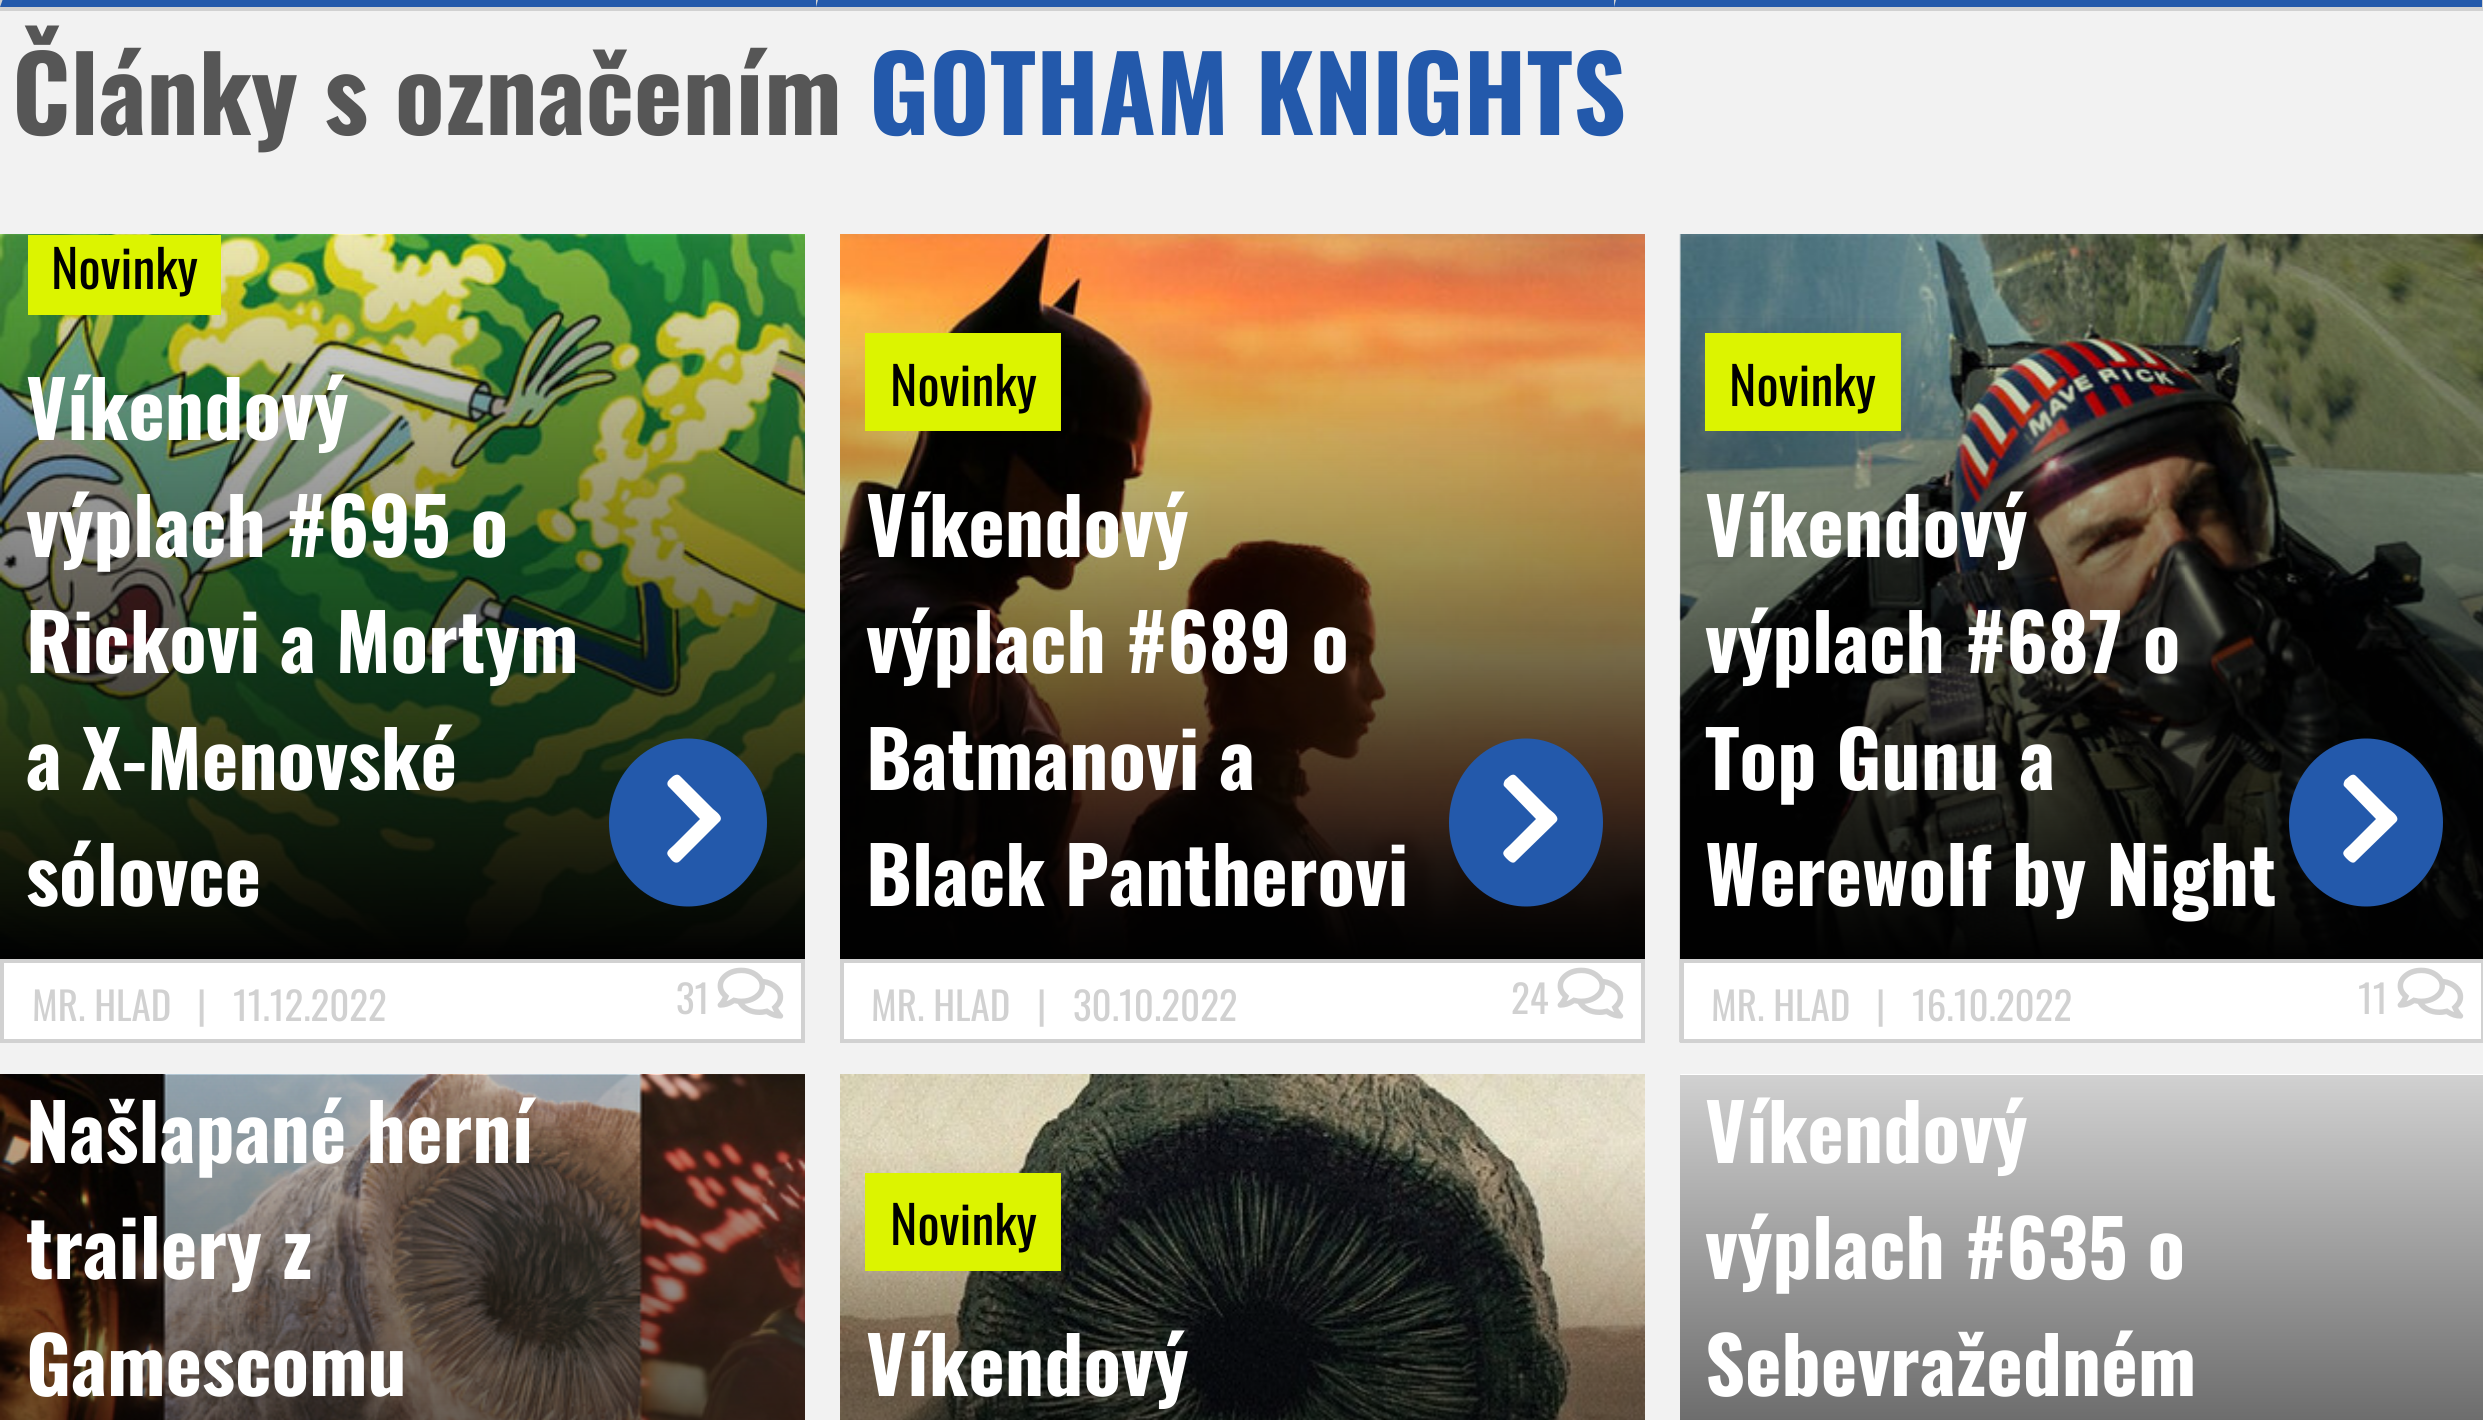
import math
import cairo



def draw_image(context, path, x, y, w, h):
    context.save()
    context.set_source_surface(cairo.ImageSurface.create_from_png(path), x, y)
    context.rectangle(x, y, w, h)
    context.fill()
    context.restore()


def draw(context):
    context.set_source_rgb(242 / 255, 242 / 255, 242 / 255)
    context.paint()
    context.set_source_rgb(35 / 255, 89 / 255, 171 / 255)
    context.rectangle(0, 0, 2482, 7)
    context.fill()
    context.set_source_rgb(209 / 255, 209 / 255, 209 / 255)
    context.rectangle(2482, 0, 1, 11)
    context.fill()
    context.rectangle(0, 7, 2483, 4)
    context.fill()
    context.new_path()
    context.move_to(0, 7)
    context.line_to(0, -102)
    context.line_to(4, -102)
    context.line_to(4, -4)
    context.close_path()
    context.fill()
    context.new_path()
    context.move_to(816, 7)
    context.line_to(816, -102)
    context.line_to(819, -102)
    context.line_to(819, -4)
    context.close_path()
    context.fill()
    context.new_path()
    context.move_to(1614, 7)
    context.line_to(1614, -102)
    context.line_to(1617, -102)
    context.line_to(1617, -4)
    context.close_path()
    context.fill()
    draw_image(context, "images/1.png", 0, 234, 805, 725)
    context.set_source_rgb(220 / 255, 244 / 255, 0)
    context.rectangle(28, 235, 193, 80)
    context.fill()
    context.set_source_rgb(35 / 255, 89 / 255, 171 / 255)
    context.new_path()
    context.move_to(688, 738.5)
    context.curve_to(731.5, 738.5, 767, 776, 767, 822.5)
    context.curve_to(767, 869, 731.5, 906.5, 688, 906.5)
    context.curve_to(644.5, 906.5, 609, 869, 609, 822.5)
    context.curve_to(609, 776, 644.5, 738.5, 688, 738.5)
    context.close_path()
    context.fill()
    context.set_source_rgb(1, 1, 1)
    context.new_path()
    context.move_to(719, 822)
    context.line_to(680, 861)
    context.curve_to(676, 865, 672, 861, 670, 858)
    context.curve_to(664, 852, 669, 850, 674, 845)
    context.line_to(700, 819)
    context.line_to(668, 786)
    context.curve_to(667, 784, 667, 782, 669, 780)
    context.curve_to(671, 778, 676, 772, 680, 776)
    context.line_to(713, 809)
    context.curve_to(715, 811, 725, 817, 719, 822)
    context.close_path()
    context.fill()
    context.rectangle(2, 961, 801, 80)
    context.fill_preserve()
    context.set_source_rgb(209 / 255, 209 / 255, 209 / 255)
    context.set_line_width(4)
    context.stroke()
    draw_image(context, "images/2.png", 717, 967, 67, 52)
    draw_image(context, "images/3.png", 840, 234, 805, 725)
    context.set_source_rgb(220 / 255, 244 / 255, 0)
    context.rectangle(865, 333, 196, 98)
    context.fill()
    context.set_source_rgb(35 / 255, 89 / 255, 171 / 255)
    context.new_path()
    context.move_to(1526, 738.5)
    context.curve_to(1568.5, 738.5, 1603, 776, 1603, 822.5)
    context.curve_to(1603, 869, 1568.5, 906.5, 1526, 906.5)
    context.curve_to(1483.5, 906.5, 1449, 869, 1449, 822.5)
    context.curve_to(1449, 776, 1483.5, 738.5, 1526, 738.5)
    context.close_path()
    context.fill()
    context.set_source_rgb(1, 1, 1)
    context.new_path()
    context.move_to(1556, 822)
    context.line_to(1516, 861)
    context.curve_to(1513, 865, 1509, 861, 1506, 858)
    context.curve_to(1500, 852, 1505, 850, 1510, 845)
    context.line_to(1536, 819)
    context.line_to(1504, 786)
    context.curve_to(1503, 784, 1504, 782, 1505, 780)
    context.curve_to(1508, 778, 1512, 772, 1516, 776)
    context.line_to(1549, 809)
    context.curve_to(1551, 811, 1561, 817, 1556, 822)
    context.close_path()
    context.fill()
    context.rectangle(842, 961, 801, 80)
    context.fill_preserve()
    context.set_source_rgb(209 / 255, 209 / 255, 209 / 255)
    context.stroke()
    draw_image(context, "images/2.png", 1557, 967, 67, 52)
    context.set_source_rgb(1, 1, 1)
    context.rectangle(1680, 235, 1, 720)
    context.fill()
    draw_image(context, "images/4.png", 1679, 234, 804, 809)
    gradient = cairo.LinearGradient(2083, 304, 2083, 959)
    gradient.add_color_stop_rgba(0, 1 / 255, 1 / 255, 1 / 255, 0)
    gradient.add_color_stop_rgba(1, 1 / 255, 1 / 255, 1 / 255, 1)
    context.set_source(gradient)
    context.rectangle(1680, 318, 803, 641)
    context.fill()
    context.set_source_rgb(220 / 255, 244 / 255, 0)
    context.rectangle(1705, 333, 196, 98)
    context.fill()
    context.set_source_rgb(35 / 255, 89 / 255, 171 / 255)
    context.new_path()
    context.move_to(2366, 738.5)
    context.curve_to(2408.5, 738.5, 2443, 776, 2443, 822.5)
    context.curve_to(2443, 869, 2408.5, 906.5, 2366, 906.5)
    context.curve_to(2323.5, 906.5, 2289, 869, 2289, 822.5)
    context.curve_to(2289, 776, 2323.5, 738.5, 2366, 738.5)
    context.close_path()
    context.fill()
    context.set_source_rgb(1, 1, 1)
    context.new_path()
    context.move_to(2396, 822)
    context.line_to(2356, 861)
    context.curve_to(2353, 865, 2349, 861, 2346, 858)
    context.curve_to(2340, 852, 2345, 850, 2350, 845)
    context.line_to(2376, 819)
    context.line_to(2344, 786)
    context.curve_to(2343, 784, 2344, 782, 2345, 780)
    context.curve_to(2348, 778, 2352, 772, 2356, 776)
    context.line_to(2389, 809)
    context.curve_to(2391, 811, 2401, 817, 2396, 822)
    context.close_path()
    context.fill()
    context.rectangle(1682, 961, 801, 80)
    context.fill_preserve()
    context.set_source_rgb(209 / 255, 209 / 255, 209 / 255)
    context.stroke()
    draw_image(context, "images/2.png", 2397, 967, 67, 52)
    draw_image(context, "images/5.png", 0, 1074, 805, 346)
    draw_image(context, "images/6.png", 840, 1074, 805, 346)
    context.set_source_rgb(220 / 255, 244 / 255, 0)
    context.rectangle(865, 1173, 196, 98)
    context.fill()
    draw_image(context, "images/7.png", 1680, 1074, 803, 1)
    gradient = cairo.LinearGradient(2083, 914, 2083, 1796)
    gradient.add_color_stop_rgba(0, 1, 1, 1, 1)
    gradient.add_color_stop_rgba(1, 1 / 255, 1 / 255, 1 / 255, 1)
    context.set_source(gradient)
    context.rectangle(1680, 1075, 803, 345)
    context.fill()
    context.select_font_face("Oswald", cairo.FontSlant.NORMAL, cairo.FontWeight.BOLD)
    context.set_font_size(103.5)
    context.set_source_rgb(86 / 255, 86 / 255, 86 / 255)
    context.move_to(12, 135)
    context.show_text("Články s označením")
    context.set_source_rgb(35 / 255, 89 / 255, 171 / 255)
    context.move_to(869, 135)
    context.show_text("GOTHAM KNIGHTS")
    context.select_font_face("Oswald")
    context.set_font_size(52)
    context.set_source_rgb(0, 0, 0)
    context.move_to(51, 289)
    context.show_text("Novinky")
    context.select_font_face("Oswald", cairo.FontSlant.NORMAL, cairo.FontWeight.BOLD)
    context.set_font_size(77.75)
    context.set_source_rgb(1, 1, 1)
    context.move_to(26, 440)
    context.show_text("Víkendový")
    context.move_to(26, 557)
    context.show_text("výplach #695 o")
    context.move_to(26, 673)
    context.show_text("Rickovi a Mortym")
    context.move_to(26, 790)
    context.show_text("a X-Menovské")
    context.move_to(26, 906)
    context.show_text("sólovce")
    context.select_font_face("Oswald")
    context.set_font_size(39)
    context.set_source_rgb(209 / 255, 209 / 255, 209 / 255)
    context.move_to(32, 1021)
    context.show_text("MR. HLAD")
    context.move_to(197, 1021)
    context.show_text("|")
    context.move_to(233, 1021)
    context.show_text("11.12.2022")
    context.move_to(676, 1014)
    context.show_text("31")
    context.set_font_size(52)
    context.set_source_rgb(0, 0, 0)
    context.move_to(890, 406)
    context.show_text("Novinky")
    context.select_font_face("Oswald", cairo.FontSlant.NORMAL, cairo.FontWeight.BOLD)
    context.set_font_size(77.75)
    context.set_source_rgb(1, 1, 1)
    context.move_to(866, 557)
    context.show_text("Víkendový")
    context.move_to(866, 673)
    context.show_text("výplach #689 o")
    context.move_to(866, 790)
    context.show_text("Batmanovi a")
    context.move_to(866, 906)
    context.show_text("Black Pantherovi")
    context.select_font_face("Oswald")
    context.set_font_size(39)
    context.set_source_rgb(209 / 255, 209 / 255, 209 / 255)
    context.move_to(871, 1021)
    context.show_text("MR. HLAD")
    context.move_to(1037, 1021)
    context.show_text("|")
    context.move_to(1073, 1021)
    context.show_text("30.10.2022")
    context.move_to(1511, 1014)
    context.show_text("24")
    context.set_font_size(52)
    context.set_source_rgb(0, 0, 0)
    context.move_to(1729, 406)
    context.show_text("Novinky")
    context.select_font_face("Oswald", cairo.FontSlant.NORMAL, cairo.FontWeight.BOLD)
    context.set_font_size(77.75)
    context.set_source_rgb(1, 1, 1)
    context.move_to(1705, 557)
    context.show_text("Víkendový")
    context.move_to(1705, 673)
    context.show_text("výplach #687 o")
    context.move_to(1705, 790)
    context.show_text("Top Gunu a")
    context.move_to(1705, 906)
    context.show_text("Werewolf by Night")
    context.select_font_face("Oswald")
    context.set_font_size(39)
    context.set_source_rgb(209 / 255, 209 / 255, 209 / 255)
    context.move_to(1711, 1021)
    context.show_text("MR. HLAD")
    context.move_to(1876, 1021)
    context.show_text("|")
    context.move_to(1912, 1021)
    context.show_text("16.10.2022")
    context.move_to(2358, 1014)
    context.show_text("11")
    context.select_font_face("Oswald", cairo.FontSlant.NORMAL, cairo.FontWeight.BOLD)
    context.set_font_size(77.75)
    context.set_source_rgb(1, 1, 1)
    context.move_to(26, 1163)
    context.show_text("Našlapané herní")
    context.move_to(26, 1279)
    context.show_text("trailery z")
    context.move_to(26, 1396)
    context.show_text("Gamescomu")
    context.select_font_face("Oswald")
    context.set_font_size(52)
    context.set_source_rgb(0, 0, 0)
    context.move_to(890, 1245)
    context.show_text("Novinky")
    context.select_font_face("Oswald", cairo.FontSlant.NORMAL, cairo.FontWeight.BOLD)
    context.set_font_size(77.75)
    context.set_source_rgb(1, 1, 1)
    context.move_to(866, 1396)
    context.show_text("Víkendový")
    context.move_to(1705, 1163)
    context.show_text("Víkendový")
    context.move_to(1705, 1279)
    context.show_text("výplach #635 o")
    context.move_to(1705, 1396)
    context.show_text("Sebevražedném")


surface = cairo.ImageSurface(cairo.Format.RGB24, 2483, 1420)
context = cairo.Context(surface)
options = cairo.FontOptions()
options.set_hint_metrics(cairo.HintMetrics.OFF)
options.set_hint_style(cairo.HintStyle.NONE)
context.set_font_options(options)
context.set_miter_limit(4)
draw(context)
surface.write_to_png("out.png")
